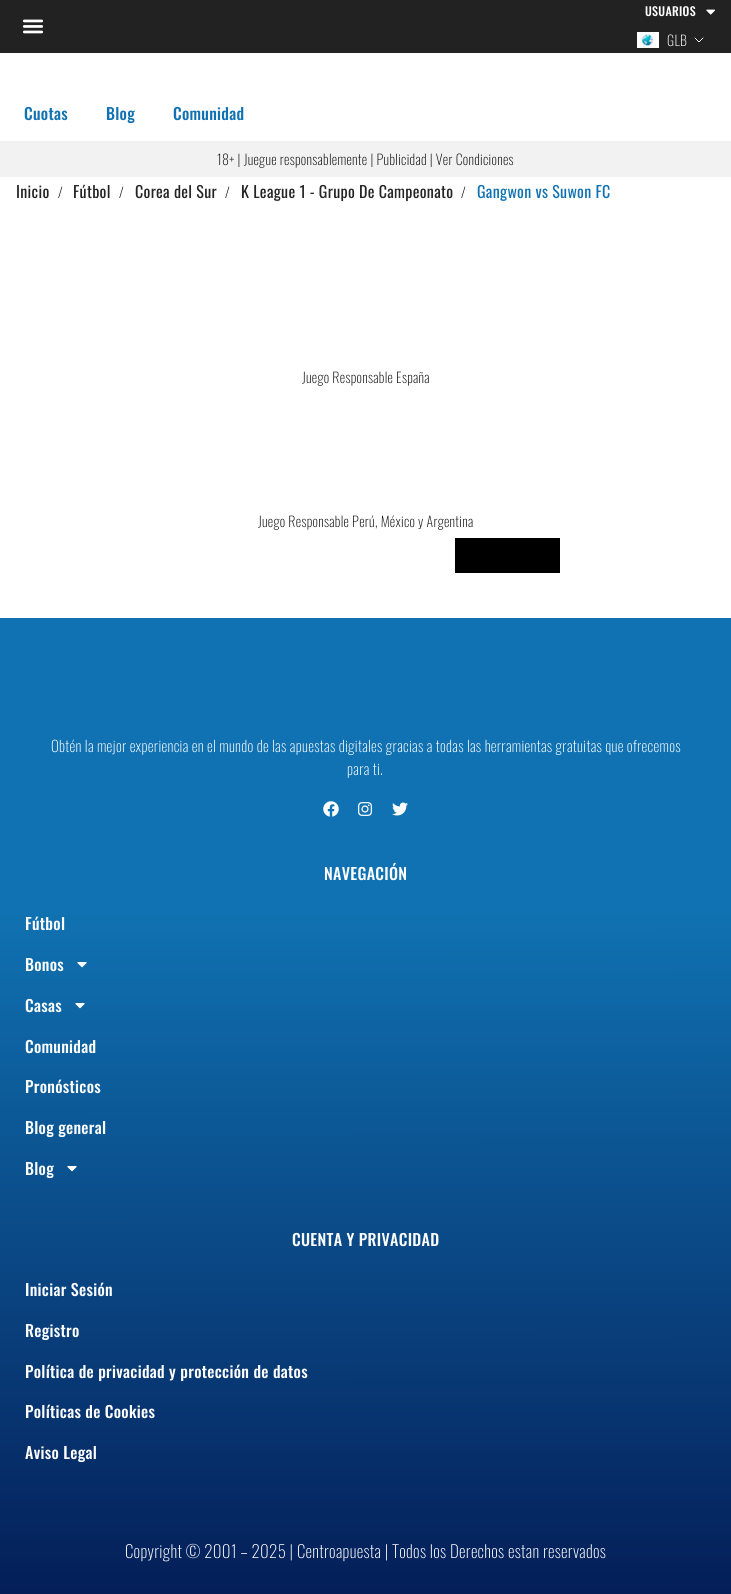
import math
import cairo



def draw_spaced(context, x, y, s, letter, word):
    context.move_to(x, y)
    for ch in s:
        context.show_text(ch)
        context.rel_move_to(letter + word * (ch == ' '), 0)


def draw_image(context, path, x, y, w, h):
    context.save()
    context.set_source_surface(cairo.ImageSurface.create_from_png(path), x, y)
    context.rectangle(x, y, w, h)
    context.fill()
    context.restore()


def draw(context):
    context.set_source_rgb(1, 1, 1)
    context.paint()
    context.set_source_rgb(34 / 255, 34 / 255, 34 / 255)
    context.rectangle(0, 0, 731, 53)
    context.fill()
    draw_image(context, "images/1.png", 22, 19, 22, 15)
    draw_image(context, "images/2.png", 706, 9, 9, 6)
    draw_image(context, "images/3.png", 637, 32, 22, 16)
    draw_image(context, "images/4.png", 694, 37, 10, 5)
    context.set_source_rgb(242 / 255, 242 / 255, 242 / 255)
    context.rectangle(0, 141, 731, 36)
    context.fill()
    context.set_source_rgb(0, 0, 0)
    context.rectangle(455, 538, 105, 35)
    context.fill()
    gradient = cairo.LinearGradient(365, 618, 366, 1594)
    gradient.add_color_stop_rgba(0.3, 16 / 255, 114 / 255, 178 / 255, 1)
    gradient.add_color_stop_rgba(1, 4 / 255, 30 / 255, 88 / 255, 1)
    context.set_source(gradient)
    context.rectangle(0, 618, 731, 976)
    context.fill()
    draw_image(context, "images/5.png", 323, 801, 16, 16)
    draw_image(context, "images/6.png", 358, 802, 14, 14)
    draw_image(context, "images/7.png", 392, 802, 16, 14)
    draw_image(context, "images/8.png", 77, 962, 10, 6)
    draw_image(context, "images/9.png", 75, 1003, 10, 6)
    draw_image(context, "images/10.png", 67, 1166, 10, 6)
    context.select_font_face("Oswald Medium")
    context.set_font_size(12)
    context.set_source_rgb(1, 1, 1)
    draw_spaced(context, 645, 16, "USUARIOS", 0.3, 0)
    context.select_font_face("Oswald ExtraLight")
    context.set_font_size(14)
    draw_spaced(context, 667, 46, "GLB", 0.3, 0)
    context.select_font_face("Oswald Medium")
    context.set_font_size(16)
    context.set_source_rgb(16 / 255, 114 / 255, 178 / 255)
    draw_spaced(context, 24, 120, "Cuotas", 0.3, 0)
    draw_spaced(context, 106, 120, "Blog", 0.3, 0)
    draw_spaced(context, 173, 120, "Comunidad", 0.3, 0)
    context.select_font_face("Oswald ExtraLight")
    context.set_font_size(14)
    context.set_source_rgb(17 / 255, 17 / 255, 17 / 255)
    draw_spaced(context, 217, 165, "18+ | Juegue responsablemente | Publicidad | Ver Condiciones", 0.3, 0)
    context.select_font_face("Oswald")
    context.set_font_size(16)
    context.set_source_rgb(36 / 255, 36 / 255, 36 / 255)
    draw_spaced(context, 16, 198, "Inicio", 0.3, 0)
    context.select_font_face("Oswald ExtraLight")
    context.set_font_size(14)
    context.set_source_rgb(0, 0, 0)
    draw_spaced(context, 58, 198, "/", 0.3, 0)
    context.select_font_face("Oswald")
    context.set_font_size(16)
    context.set_source_rgb(36 / 255, 36 / 255, 36 / 255)
    draw_spaced(context, 73, 198, "Fútbol", 0.3, 0)
    context.select_font_face("Oswald ExtraLight")
    context.set_font_size(14)
    context.set_source_rgb(0, 0, 0)
    draw_spaced(context, 119, 198, "/", 0.3, 0)
    context.select_font_face("Oswald")
    context.set_font_size(16)
    context.set_source_rgb(36 / 255, 36 / 255, 36 / 255)
    draw_spaced(context, 135, 198, "Corea del Sur", 0.3, 0)
    context.select_font_face("Oswald ExtraLight")
    context.set_font_size(14)
    context.set_source_rgb(0, 0, 0)
    draw_spaced(context, 225, 198, "/", 0.3, 0)
    context.select_font_face("Oswald")
    context.set_font_size(16)
    context.set_source_rgb(36 / 255, 36 / 255, 36 / 255)
    draw_spaced(context, 241, 198, "K League 1 - Grupo De Campeonato", 0.3, 0)
    context.select_font_face("Oswald ExtraLight")
    context.set_font_size(14)
    context.set_source_rgb(0, 0, 0)
    draw_spaced(context, 461, 198, "/", 0.3, 0)
    context.select_font_face("Oswald")
    context.set_font_size(16)
    context.set_source_rgb(16 / 255, 114 / 255, 178 / 255)
    draw_spaced(context, 477, 198, "Gangwon vs Suwon FC", 0.3, 0)
    context.select_font_face("Oswald ExtraLight")
    context.set_font_size(14)
    context.set_source_rgb(17 / 255, 17 / 255, 17 / 255)
    draw_spaced(context, 302, 383, "Juego Responsable España", 0.3, 0)
    draw_spaced(context, 258, 527, "Juego Responsable Perú, México y Argentina", 0.3, 0)
    context.set_font_size(15)
    context.set_source_rgb(1, 1, 1)
    draw_spaced(context, 51, 752, "Obtén la mejor experiencia en el mundo de las apuestas digitales gracias a todas las herramientas gratuitas que ofrecemos", 0.3, 0)
    draw_spaced(context, 347, 775, "para ti.", 0.3, 0)
    context.select_font_face("Oswald Medium")
    context.set_font_size(16)
    draw_spaced(context, 324, 880, "NAVEGACIÓN", 0.3, 0)
    draw_spaced(context, 25, 930, "Fútbol", 0.3, 0)
    draw_spaced(context, 25, 971, "Bonos", 0.3, 0)
    draw_spaced(context, 25, 1012, "Casas", 0.3, 0)
    draw_spaced(context, 25, 1053, "Comunidad", 0.3, 0)
    draw_spaced(context, 25, 1093, "Pronósticos", 0.3, 0)
    draw_spaced(context, 25, 1134, "Blog general", 0.3, 0)
    draw_spaced(context, 25, 1175, "Blog", 0.3, 0)
    draw_spaced(context, 292, 1246, "CUENTA Y PRIVACIDAD", 0.3, 0)
    draw_spaced(context, 25, 1296, "Iniciar Sesión", 0.3, 0)
    draw_spaced(context, 25, 1337, "Registro", 0.3, 0)
    draw_spaced(context, 25, 1378, "Política de privacidad y protección de datos", 0.3, 0)
    draw_spaced(context, 25, 1418, "Políticas de Cookies", 0.3, 0)
    draw_spaced(context, 25, 1459, "Aviso Legal", 0.3, 0)
    context.select_font_face("Oswald ExtraLight")
    context.set_font_size(17)
    draw_spaced(context, 125, 1558, "Copyright © 2001 – 2025 | Centroapuesta | Todos los Derechos estan reservados", 0.3, 0)


surface = cairo.ImageSurface(cairo.Format.RGB24, 731, 1594)
context = cairo.Context(surface)
options = cairo.FontOptions()
options.set_hint_metrics(cairo.HintMetrics.OFF)
options.set_hint_style(cairo.HintStyle.NONE)
context.set_font_options(options)
context.set_miter_limit(4)
draw(context)
surface.write_to_png("out.png")
